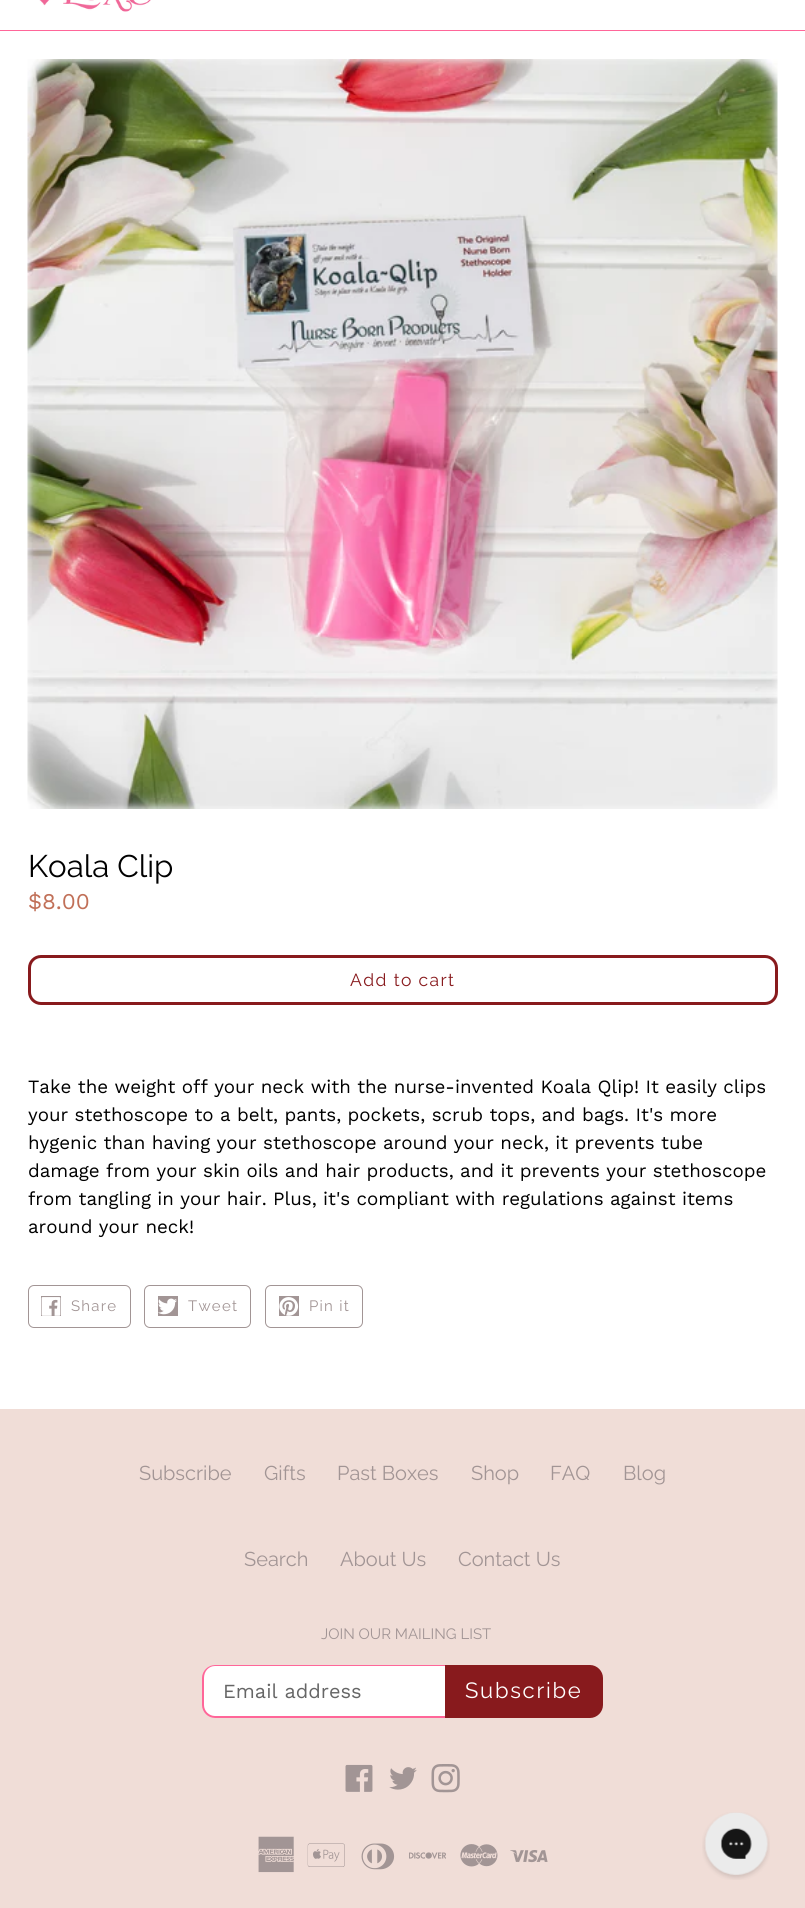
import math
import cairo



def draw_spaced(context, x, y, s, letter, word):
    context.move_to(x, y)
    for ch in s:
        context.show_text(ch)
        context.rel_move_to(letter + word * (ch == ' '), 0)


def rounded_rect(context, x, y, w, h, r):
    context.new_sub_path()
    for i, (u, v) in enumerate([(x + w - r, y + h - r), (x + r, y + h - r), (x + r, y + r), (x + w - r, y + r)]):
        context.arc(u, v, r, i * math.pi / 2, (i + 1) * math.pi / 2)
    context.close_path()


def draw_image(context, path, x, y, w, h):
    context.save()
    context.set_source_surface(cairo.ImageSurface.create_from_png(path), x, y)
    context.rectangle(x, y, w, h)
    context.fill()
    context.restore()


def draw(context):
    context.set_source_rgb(1, 1, 1)
    context.paint()
    context.set_source_rgb(1, 102 / 255, 153 / 255)
    context.rectangle(0, 30, 805, 1)
    context.fill()
    draw_image(context, "images/1.png", 39, 0, 112, 12)
    draw_image(context, "images/2.png", 27, 59, 751, 750)
    rounded_rect(context, 29.5, 956.5, 747, 47, 11.5)
    context.set_source_rgb(136 / 255, 26 / 255, 29 / 255)
    context.set_line_width(3)
    context.stroke()
    rounded_rect(context, 28.5, 1285.5, 102, 42, 5.5)
    context.set_source_rgb(162 / 255, 149 / 255, 149 / 255)
    context.set_line_width(1)
    context.stroke()
    context.rectangle(41, 1296, 20, 20)
    context.fill()
    draw_image(context, "images/3.png", 41, 1297, 20, 19)
    rounded_rect(context, 144.5, 1285.5, 106, 42, 5.5)
    context.stroke()
    context.rectangle(158, 1296, 20, 20)
    context.fill()
    draw_image(context, "images/4.png", 158, 1298, 19, 17)
    rounded_rect(context, 265.5, 1285.5, 97, 42, 5.5)
    context.stroke()
    context.rectangle(279, 1296, 20, 20)
    context.fill()
    draw_image(context, "images/5.png", 279, 1297, 20, 19)
    context.set_source_rgb(240 / 255, 221 / 255, 215 / 255)
    context.rectangle(0, 1409, 805, 499)
    context.fill()
    context.set_source_rgb(1, 1, 1)
    context.new_path()
    context.move_to(216, 1665)
    context.line_to(445, 1665)
    context.line_to(445, 1718)
    context.line_to(216, 1718)
    context.curve_to(209, 1718, 203, 1712, 203, 1705)
    context.line_to(203, 1678)
    context.curve_to(203, 1671, 209, 1665, 216, 1665)
    context.close_path()
    context.fill()
    context.set_source_rgb(1, 102 / 255, 153 / 255)
    context.set_fill_rule(cairo.FillRule.EVEN_ODD)
    context.new_path()
    context.move_to(215, 1665)
    context.line_to(445, 1665)
    context.line_to(445, 1718)
    context.line_to(215, 1718)
    context.curve_to(208, 1718, 202, 1712, 202, 1705)
    context.line_to(202, 1678)
    context.curve_to(202, 1671, 208, 1665, 215, 1665)
    context.close_path()
    context.move_to(215, 1666)
    context.line_to(445, 1666)
    context.line_to(445, 1716)
    context.line_to(215, 1716)
    context.curve_to(209, 1716, 204, 1711, 204, 1705)
    context.line_to(204, 1678)
    context.curve_to(204, 1671, 209, 1666, 215, 1666)
    context.close_path()
    context.fill()
    context.set_source_rgb(136 / 255, 26 / 255, 29 / 255)
    context.new_path()
    context.move_to(445, 1665)
    context.line_to(590, 1665)
    context.curve_to(597, 1665, 603, 1671, 603, 1678)
    context.line_to(603, 1705)
    context.curve_to(603, 1712, 597, 1718, 590, 1718)
    context.line_to(445, 1718)
    context.close_path()
    context.fill()
    draw_image(context, "images/6.png", 345, 1764, 28, 28)
    draw_image(context, "images/7.png", 389, 1767, 28, 23)
    draw_image(context, "images/8.png", 431, 1764, 29, 29)
    draw_image(context, "images/9.png", 258, 1836, 36, 37)
    draw_image(context, "images/10.png", 307, 1843, 38, 24)
    draw_image(context, "images/11.png", 361, 1843, 34, 27)
    draw_image(context, "images/12.png", 409, 1852, 37, 7)
    draw_image(context, "images/13.png", 460, 1844, 38, 23)
    draw_image(context, "images/14.png", 510, 1850, 38, 13)
    draw_image(context, "images/15.png", 702, 1812, 68, 68)
    context.select_font_face("Raleway")
    context.set_font_size(31.25)
    context.set_source_rgb(0, 0, 0)
    context.move_to(28, 877)
    context.show_text("Koala Clip")
    context.select_font_face("Work Sans")
    context.set_font_size(22.5)
    context.set_source_rgb(193 / 255, 112 / 255, 88 / 255)
    context.move_to(28, 909)
    context.show_text("$8.00")
    context.select_font_face("Raleway")
    context.set_font_size(17.5)
    context.set_source_rgb(136 / 255, 26 / 255, 29 / 255)
    draw_spaced(context, 350, 986, "Add to cart", 1.4, 0)
    context.select_font_face("Work Sans")
    context.set_font_size(18.75)
    context.set_source_rgb(0, 0, 0)
    context.move_to(28, 1093)
    context.show_text("Take the weight off your neck with the nurse-invented Koala Qlip! It easily clips")
    context.move_to(28, 1121)
    context.show_text("your stethoscope to a belt, pants, pockets, scrub tops, and bags. It's more")
    context.move_to(28, 1149)
    context.show_text("hygenic than having your stethoscope around your neck, it prevents tube")
    context.move_to(28, 1177)
    context.show_text("damage from your skin oils and hair products, and it prevents your stethoscope")
    context.move_to(28, 1205)
    context.show_text("from tangling in your hair. Plus, it's compliant with regulations against items")
    context.move_to(28, 1233)
    context.show_text("around your neck!")
    context.select_font_face("Raleway")
    context.set_font_size(15)
    context.set_source_rgb(162 / 255, 149 / 255, 149 / 255)
    draw_spaced(context, 71, 1311, "Share", 1.25, 0)
    draw_spaced(context, 188, 1311, "Tweet", 1.25, 0)
    draw_spaced(context, 309, 1311, "Pin it", 1.25, 0)
    context.set_font_size(20)
    context.move_to(139, 1480)
    context.show_text("Subscribe")
    context.move_to(264, 1480)
    context.show_text("Gifts")
    context.move_to(337, 1480)
    context.show_text("Past Boxes")
    context.move_to(471, 1480)
    context.show_text("Shop")
    context.move_to(550, 1480)
    context.show_text("FAQ")
    context.move_to(623, 1480)
    context.show_text("Blog")
    context.move_to(244, 1566)
    context.show_text("Search")
    context.move_to(340, 1566)
    context.show_text("About Us")
    context.move_to(458, 1566)
    context.show_text("Contact Us")
    context.set_font_size(15)
    context.move_to(321, 1639)
    context.show_text("JOIN OUR MAILING LIST")
    context.select_font_face("Work Sans")
    context.set_font_size(20)
    context.set_source_rgb(102 / 255, 102 / 255, 102 / 255)
    context.move_to(223, 1698)
    context.show_text("Email address")
    context.select_font_face("Raleway")
    context.set_font_size(22)
    context.set_source_rgb(1, 1, 1)
    draw_spaced(context, 465, 1698, "Subscribe", 1.75, 0)


surface = cairo.ImageSurface(cairo.Format.RGB24, 805, 1908)
context = cairo.Context(surface)
options = cairo.FontOptions()
options.set_hint_metrics(cairo.HintMetrics.OFF)
options.set_hint_style(cairo.HintStyle.NONE)
context.set_font_options(options)
context.set_miter_limit(4)
draw(context)
surface.write_to_png("out.png")
